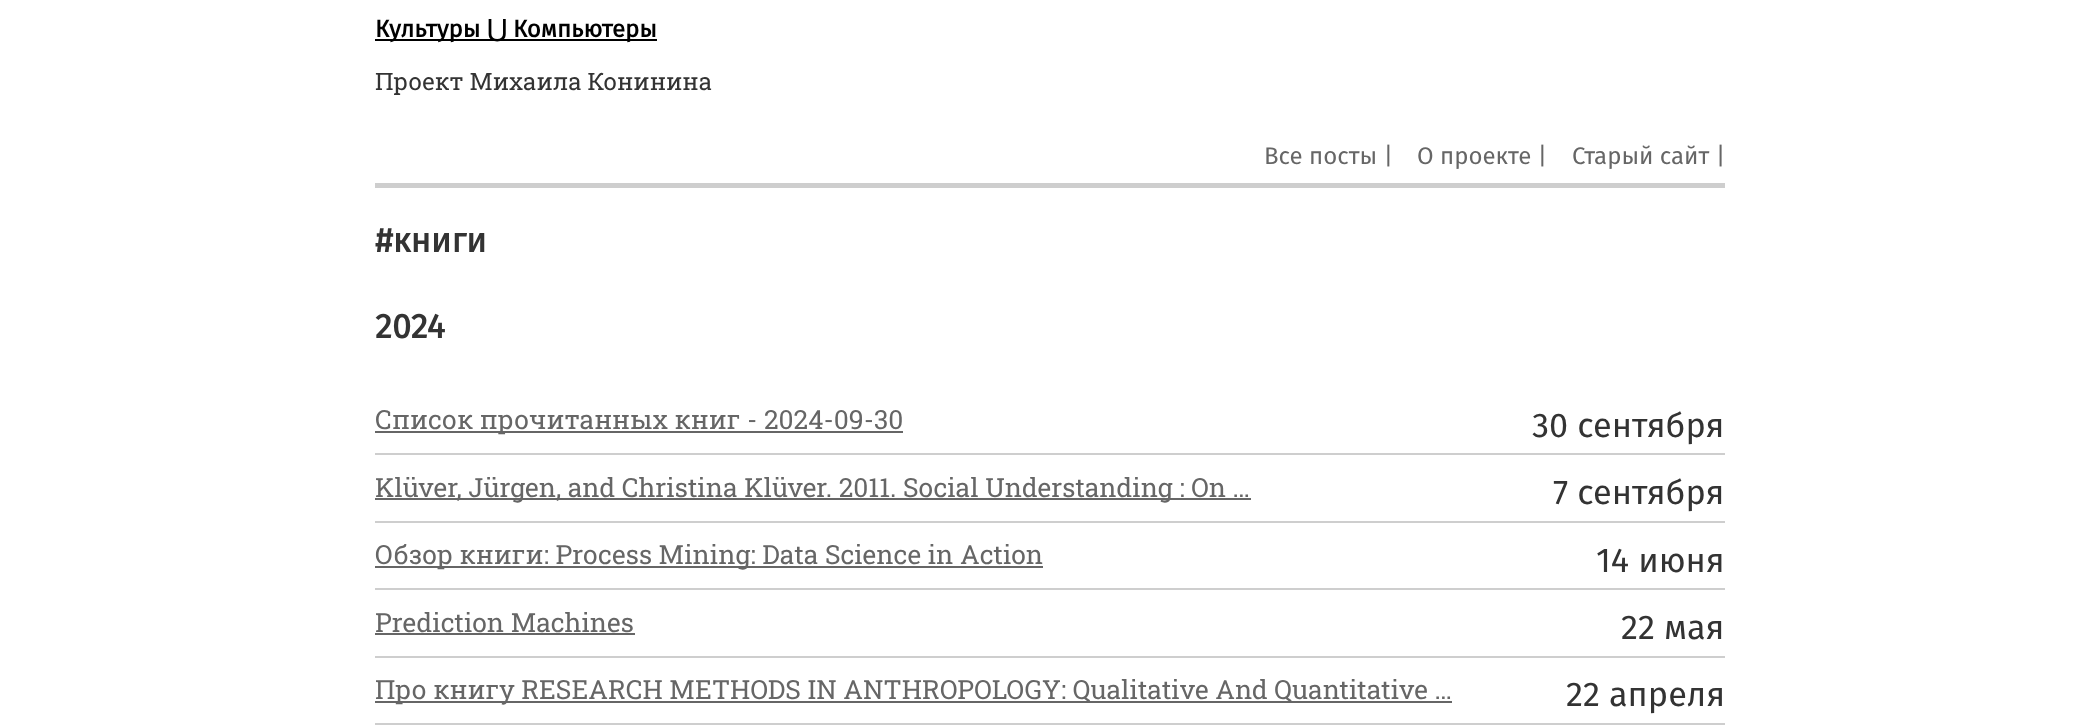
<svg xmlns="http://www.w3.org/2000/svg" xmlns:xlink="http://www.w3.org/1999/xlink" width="2099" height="726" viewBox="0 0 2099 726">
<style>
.cls-1{font:bold 24px Fira Sans;fill:#000000}
.cls-2{font:bold 24px DejaVu Sans;fill:#000000}
.cls-3{font:24px Roboto Slab;fill:#333333}
.cls-4{font:24px Fira Sans;fill:#666666}
.cls-5{font:bold 34.25px Fira Sans;fill:#333333}
.cls-6{font:26.4px Roboto Slab;fill:#666666}
.cls-7{font:34.25px Fira Sans;fill:#333333}
</style>
<rect width="100%" height="100%" fill="#ffffff"/>
<rect fill="#000000" x="375" y="39" width="282" height="2"/>
<rect fill="#cecece" x="375" y="183" width="1350" height="5"/>
<rect fill="#cecece" x="375" y="453" width="1350" height="2"/>
<rect fill="#666666" x="375" y="431" width="528" height="2"/>
<rect fill="#cecece" x="375" y="521" width="1350" height="2"/>
<rect fill="#666666" x="375" y="498" width="876" height="2"/>
<rect fill="#cecece" x="375" y="588" width="1350" height="2"/>
<rect fill="#666666" x="375" y="566" width="668" height="2"/>
<rect fill="#cecece" x="375" y="656" width="1350" height="2"/>
<rect fill="#666666" x="375" y="633" width="260" height="2"/>
<rect fill="#cecece" x="375" y="723" width="1350" height="2"/>
<rect fill="#666666" x="375" y="701" width="1077" height="2"/>
<text class="cls-1" x="375" y="37">Культуры</text>
<text class="cls-2" x="487" y="37">⋃</text>
<text class="cls-1" x="513" y="37">Компьютеры</text>
<text class="cls-3" x="375" y="90">Проект Михаила Конинина</text>
<text class="cls-4" x="1264" y="164">Все посты |</text>
<text class="cls-4" x="1417" y="164">О проекте |</text>
<text class="cls-4" x="1572" y="164">Старый сайт |</text>
<text class="cls-5" x="375" y="252">#книги</text>
<text class="cls-5" x="375" y="338">2024</text>
<text class="cls-6" x="375" y="429">Список прочитанных книг - 2024-09-30</text>
<text class="cls-7" x="1532" y="437">30 сентября</text>
<text class="cls-6" x="375" y="497">Klüver, Jürgen, and Christina Klüver. 2011. Social Understanding : On …</text>
<text class="cls-7" x="1553" y="504">7 сентября</text>
<text class="cls-6" x="375" y="564">Обзор книги: Process Mining: Data Science in Action</text>
<text class="cls-7" x="1596" y="572">14 июня</text>
<text class="cls-6" x="375" y="632">Prediction Machines</text>
<text class="cls-7" x="1621" y="639">22 мая</text>
<text class="cls-6" x="375" y="699">Про книгу RESEARCH METHODS IN ANTHROPOLOGY: Qualitative And Quantitative …</text>
<text class="cls-7" x="1566" y="706">22 апреля</text>
</svg>
